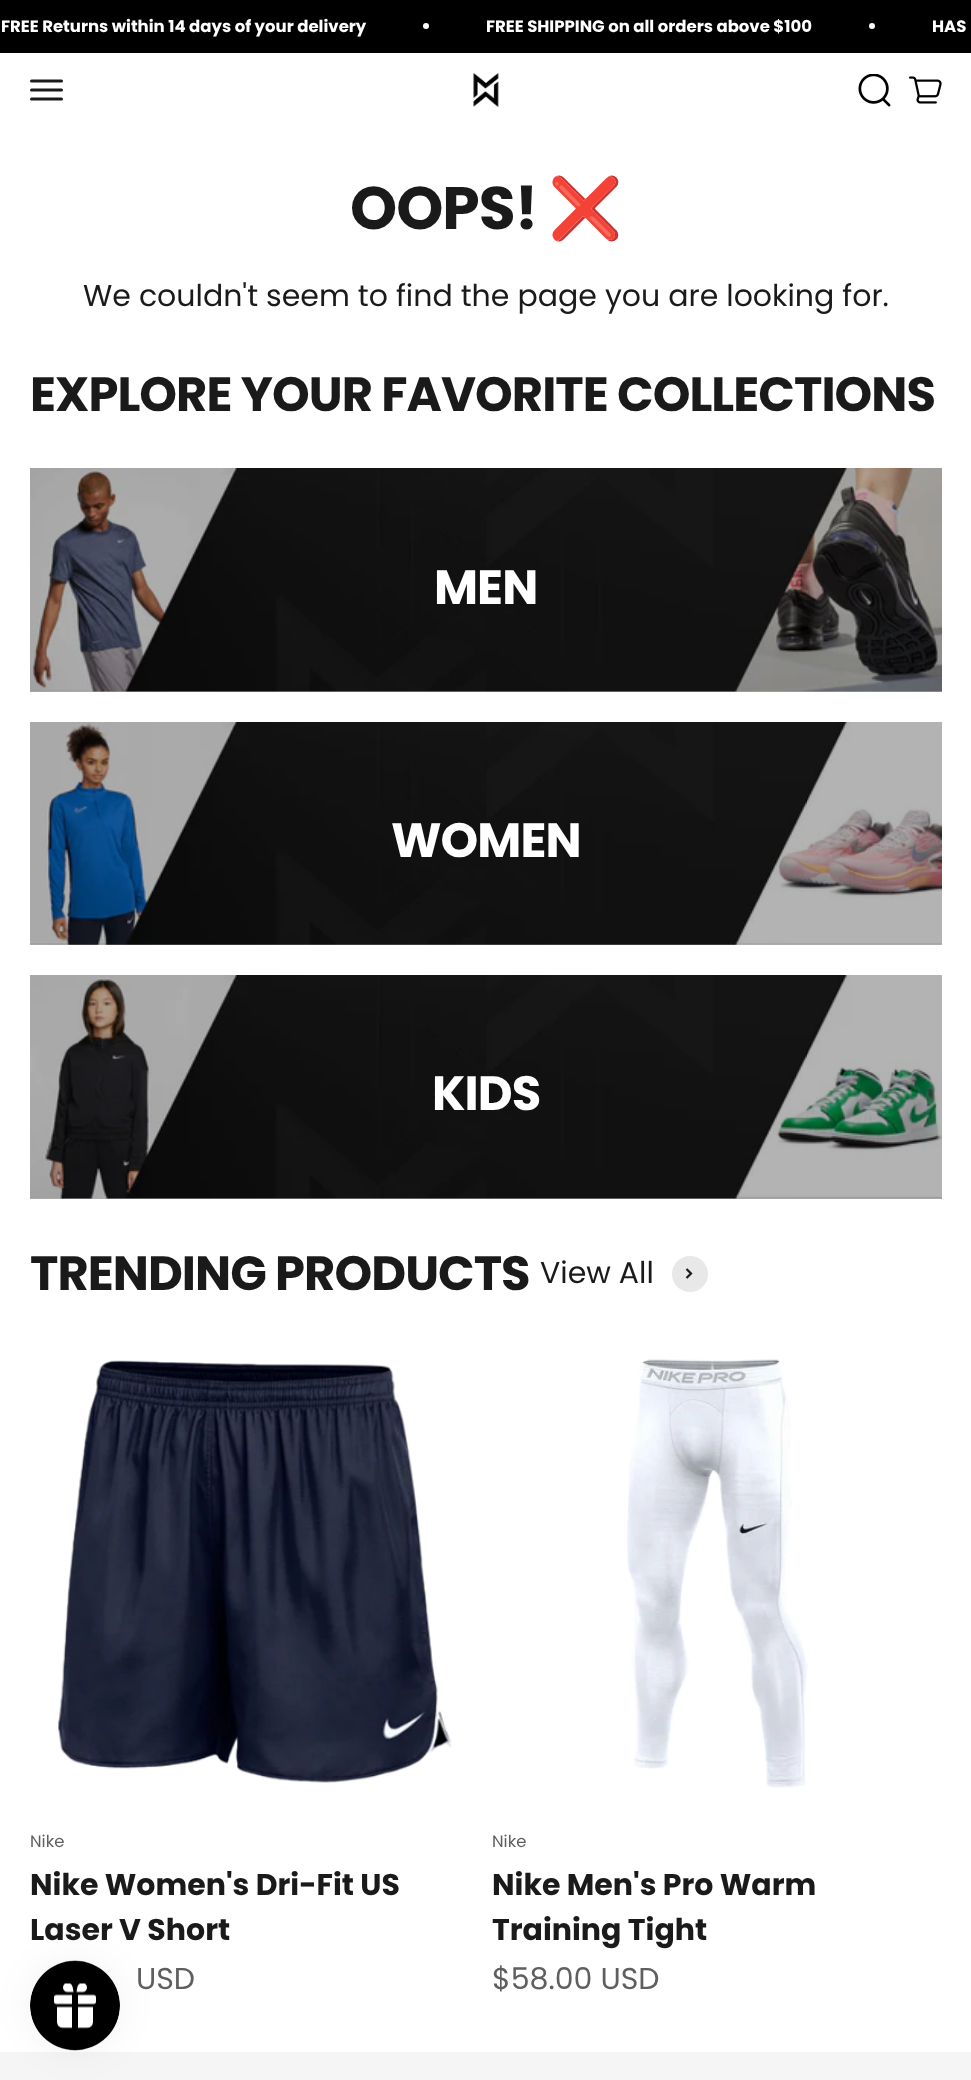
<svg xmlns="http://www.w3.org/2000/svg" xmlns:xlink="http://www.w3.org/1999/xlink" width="971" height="2080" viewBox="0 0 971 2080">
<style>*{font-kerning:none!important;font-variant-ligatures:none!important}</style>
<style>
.cls-1{font:bold 16.5px Poppins;fill:#ffffff}
.cls-2{font:bold 60px Poppins;letter-spacing:-1px;fill:#1a1a1a}
.cls-3{font:bold 60px Noto Color Emoji;letter-spacing:-1px;fill:#1a1a1a}
.cls-4{font:30px Poppins;fill:#1a1a1a}
.cls-5{font:bold 48px Poppins;letter-spacing:-0.95px;fill:#1a1a1a}
.cls-6{font:bold 48px Poppins;letter-spacing:-0.95px;fill:#ffffff}
.cls-7{font:16.5px Poppins;fill:#5f5f5f}
.cls-8{font:bold 30px Poppins;fill:#1a1a1a}
.cls-9{font:30px Poppins;fill:#5f5f5f}
</style>
<rect width="100%" height="100%" fill="#ffffff"/>
<rect fill="#b3b3b3" x="30" y="1198" width="912" height="1"/>
<rect fill="#b3b3b3" x="30" y="691" width="912" height="1"/>
<rect fill="#000000" x="0" y="0" width="971" height="53"/>
<circle fill="#ffffff" cx="426" cy="26" r="3"/>
<circle fill="#ffffff" cx="872" cy="26" r="3"/>
<path fill="none" stroke="#1a1a1a" stroke-width="3" stroke-linecap="round" d="M31.5 81H61.5M31.5 90H61.5M31.5 99H61.5"/>
<image xlink:href="image0.png" x="473" y="73" width="26" height="34"/>
<image xlink:href="image1.png" x="858" y="74" width="33" height="33"/>
<image xlink:href="image2.png" x="909" y="76" width="33" height="28"/>
<image xlink:href="image3.png" x="30" y="468" width="912" height="224"/>
<image xlink:href="image4.png" x="30" y="722" width="912" height="223"/>
<image xlink:href="image5.png" x="30" y="975" width="912" height="224"/>
<circle fill="#e8e8e8" cx="690" cy="1274" r="18"/>
<path fill="none" stroke="#1a1a1a" stroke-width="2.2" d="M686.5 1278L691 1273.5L686.5 1269"/>
<image xlink:href="image6.png" x="58" y="1360" width="394" height="423"/>
<image xlink:href="image7.png" x="627" y="1359" width="181" height="429"/>
<rect fill="#f5f5f5" x="0" y="2052" width="971" height="28"/>
<rect fill="#000000" fill-opacity="0.05" filter="blur(19px)" x="30" y="1961" width="90" height="90" rx="45"/>
<image xlink:href="image8.png" x="30" y="1960" width="90" height="91"/>
<text class="cls-1" x="1" y="32">FREE Returns within 14 days of your delivery</text>
<text class="cls-1" x="486" y="32">FREE SHIPPING on all orders above $100</text>
<text class="cls-1" x="932" y="32">HAS</text>
<text class="cls-2" x="350" y="229">OOPS!</text>
<text class="cls-3" x="548" y="229">❌</text>
<text class="cls-4" x="83" y="306">We couldn't seem to find the page you are looking for.</text>
<text class="cls-5" x="30" y="411">EXPLORE YOUR FAVORITE COLLECTIONS</text>
<text class="cls-6" x="434" y="604">MEN</text>
<text class="cls-6" x="391" y="857">WOMEN</text>
<text class="cls-6" x="432" y="1110">KIDS</text>
<text class="cls-5" x="30" y="1290">TRENDING PRODUCTS</text>
<text class="cls-4" x="540" y="1283">View All</text>
<text class="cls-7" x="30" y="1847">Nike</text>
<text class="cls-8"><tspan x="30" y="1895">Nike Women's Dri-Fit US</tspan><tspan x="30" y="1940">Laser V Short</tspan></text>
<text class="cls-9" x="136" y="1989">USD</text>
<text class="cls-7" x="492" y="1847">Nike</text>
<text class="cls-8"><tspan x="492" y="1895">Nike Men's Pro Warm</tspan><tspan x="492" y="1940">Training Tight</tspan></text>
<text class="cls-9" x="492" y="1989">$58.00 USD</text>
</svg>
